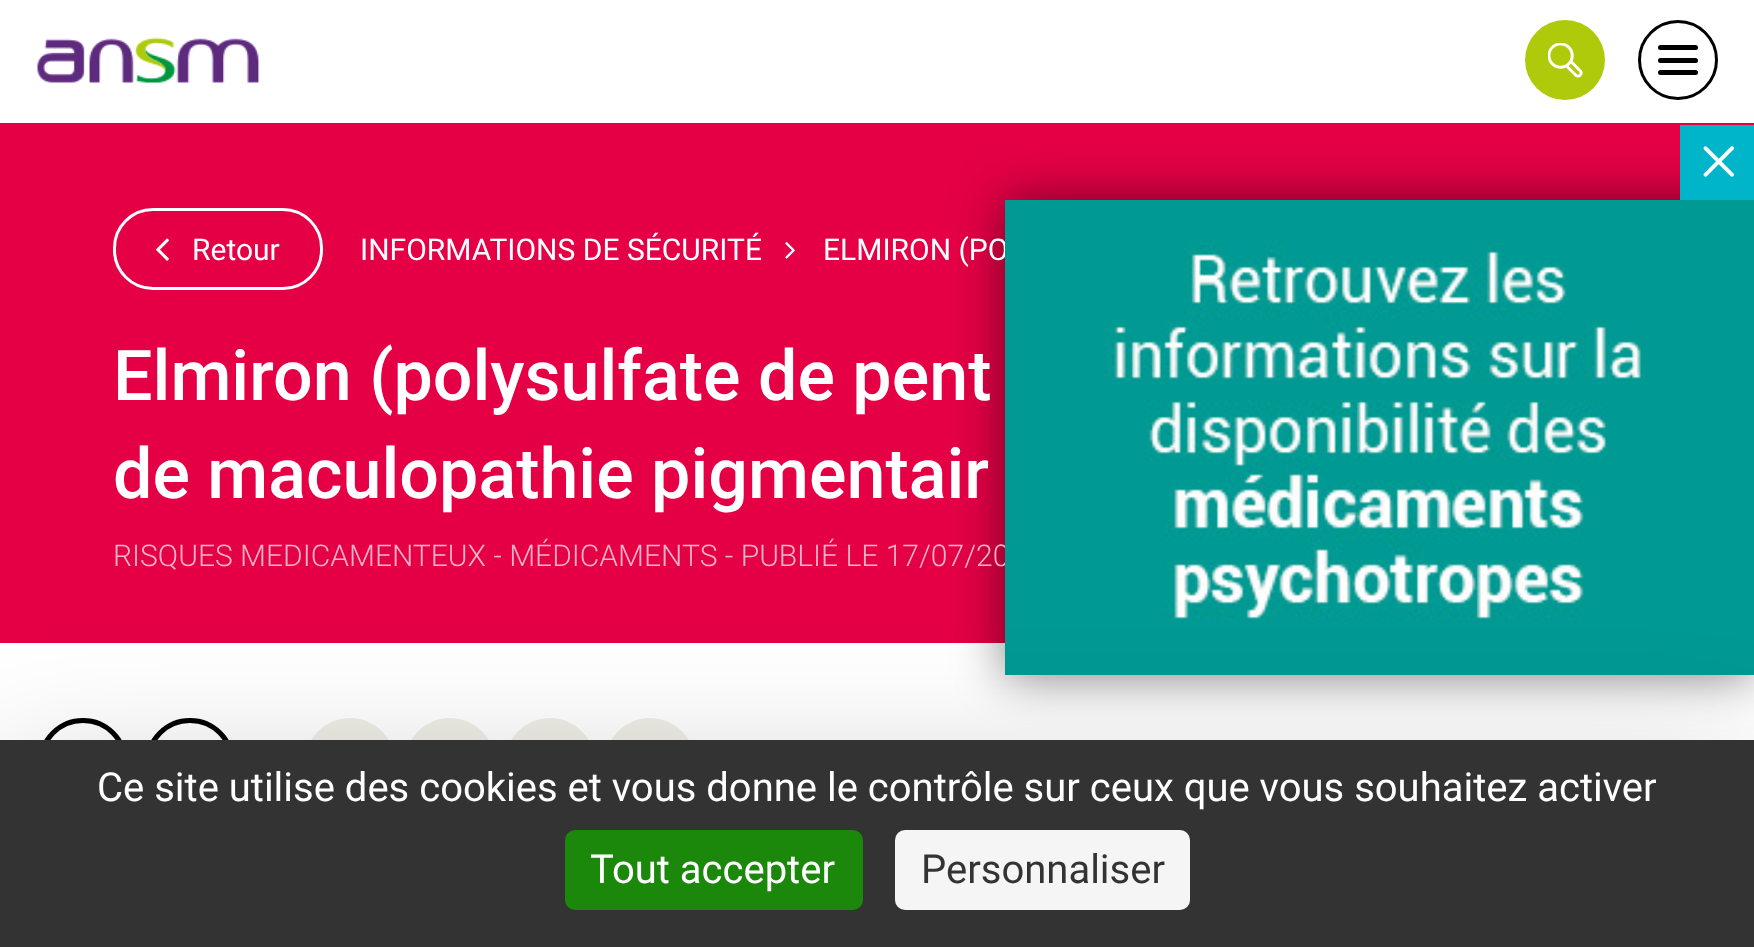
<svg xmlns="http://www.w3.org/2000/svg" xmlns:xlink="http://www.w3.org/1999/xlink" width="1754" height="947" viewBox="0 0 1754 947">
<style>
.cls-1{font:30px Roboto;fill:#ffffff}
.cls-2{font:500 70px Roboto;fill:#ffffff}
.cls-3{font:300 30px Roboto;fill:#f7b3c8}
.cls-4{font:40px Roboto;fill:#ffffff}
.cls-5{font:40px Roboto;fill:#333333}
</style>
<rect width="100%" height="100%" fill="#ffffff"/>
<image xlink:href="image0.png" x="37" y="37" width="223" height="46"/>
<circle fill="#afca0b" cx="1565" cy="60" r="40"/>
<image xlink:href="image1.png" x="1548" y="43" width="35" height="35"/>
<circle fill="none" stroke="#000000" stroke-width="3" cx="1678" cy="60" r="38.5"/>
<rect fill="#000000" x="1658" y="45" width="40" height="5" rx="2.5"/>
<rect fill="#000000" x="1658" y="58" width="40" height="5" rx="2.5"/>
<rect fill="#000000" x="1658" y="70" width="40" height="5" rx="2.5"/>
<rect fill="#e50046" x="0" y="123" width="1754" height="520"/>
<rect fill="none" stroke="#ffffff" stroke-width="3" x="114.5" y="209.5" width="207" height="79" rx="38.5"/>
<image xlink:href="image2.png" x="156" y="238" width="13" height="23"/>
<image xlink:href="image3.png" x="785" y="242" width="10" height="17"/>
<circle fill="none" stroke="#000000" stroke-width="5" cx="83" cy="763" r="42.5"/>
<circle fill="none" stroke="#000000" stroke-width="5" cx="190" cy="763" r="42.5"/>
<circle fill="#efefe7" cx="350" cy="763" r="45"/>
<circle fill="#efefe7" cx="450" cy="763" r="45"/>
<circle fill="#efefe7" cx="550" cy="763" r="45"/>
<circle fill="#efefe7" cx="650" cy="763" r="45"/>
<rect fill="#000000" fill-opacity="0.5" filter="blur(25px)" x="1005" y="200" width="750" height="475"/>
<rect fill="#00b4ca" x="1680" y="125" width="74" height="75"/>
<image xlink:href="image5.png" x="1703" y="146" width="31" height="31"/>
<text class="cls-1" x="192" y="260">Retour</text>
<text class="cls-1" x="360" y="260">INFORMATIONS DE SÉCURITÉ</text>
<text class="cls-1" x="823" y="260">ELMIRON (PO</text>
<text class="cls-2"><tspan x="113" y="400">Elmiron (polysulfate de pent</tspan><tspan x="113" y="498">de maculopathie pigmentair</tspan></text>
<text class="cls-3" x="113" y="566">RISQUES MEDICAMENTEUX - MÉDICAMENTS - PUBLIÉ LE 17/07/20</text>
<image xlink:href="image4.png" x="1005" y="200" width="749" height="475"/>
<rect fill="#000000" fill-opacity="0.25" filter="blur(75px)" x="0" y="790" width="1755" height="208"/>
<rect fill="#333333" x="0" y="740" width="1754" height="207"/>
<text class="cls-4" x="97" y="801">Ce site utilise des cookies et vous donne le contrôle sur ceux que vous souhaitez activer</text>
<rect fill="#1b870b" x="565" y="830" width="298" height="80" rx="10"/>
<text class="cls-4" x="590" y="883">Tout accepter</text>
<rect fill="#f5f5f5" x="895" y="830" width="295" height="80" rx="10"/>
<text class="cls-5" x="921" y="883">Personnaliser</text>
</svg>
